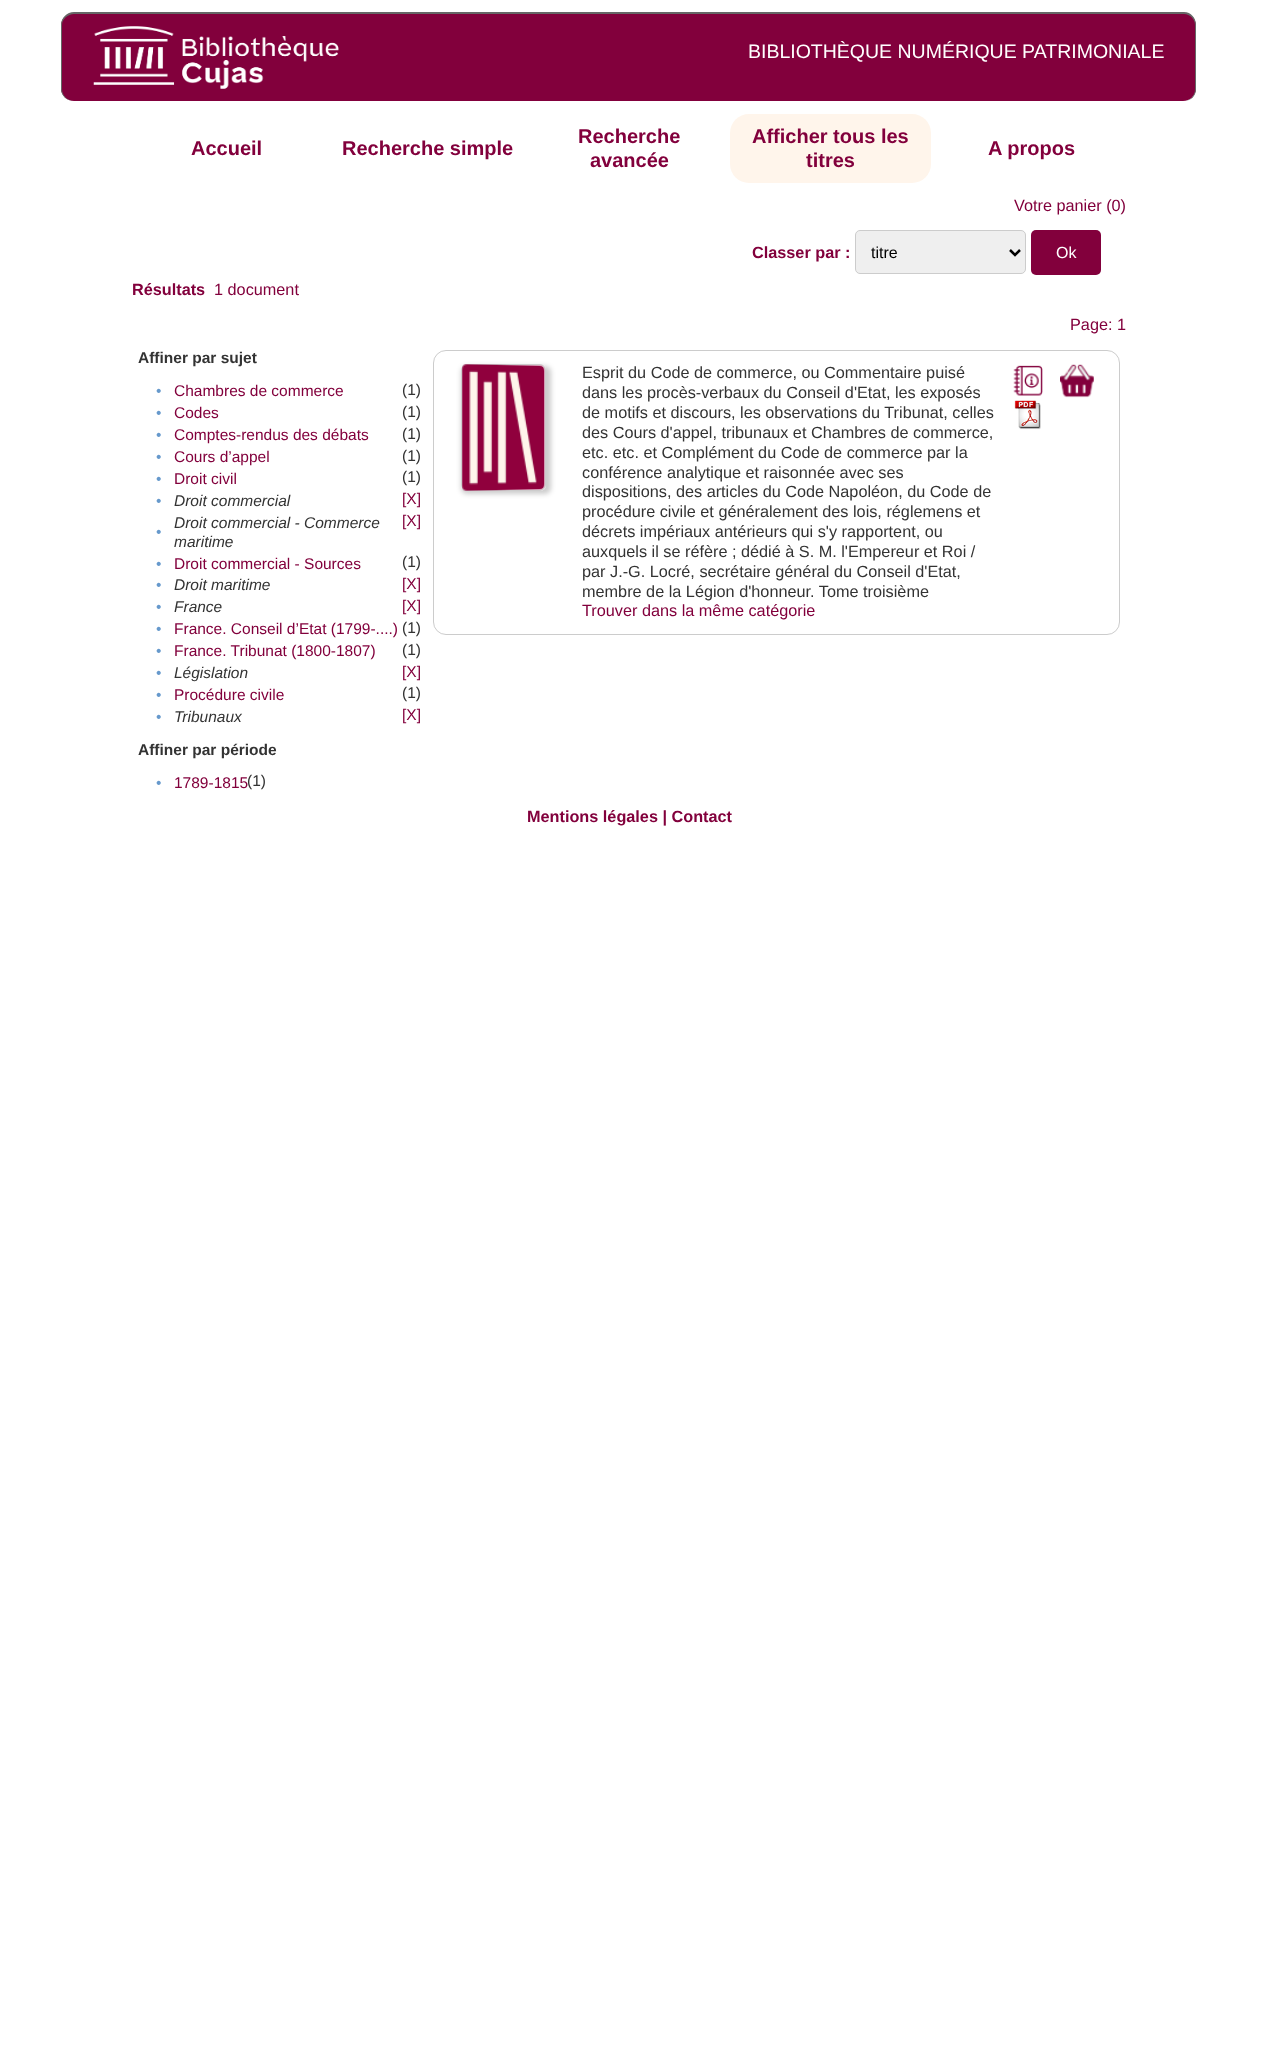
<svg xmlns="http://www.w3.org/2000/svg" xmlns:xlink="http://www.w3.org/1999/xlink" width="1271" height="2058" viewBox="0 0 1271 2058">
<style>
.cls-1{font:19.5px Liberation Sans;fill:#ffffff}
.cls-2{font:bold 20px Liberation Sans;fill:#82003c}
.cls-3{font:16.25px Liberation Sans;fill:#82003c}
.cls-4{font:bold 16.25px Liberation Sans;fill:#82003c}
.cls-5{font:16px Liberation Sans;fill:#000000}
.cls-6{font:16px Liberation Sans;fill:#ffffff}
.cls-7{font:bold 15.5px Liberation Sans;fill:#333333}
.cls-8{font:15.5px Liberation Sans;fill:#6699cc}
.cls-9{font:15.5px Liberation Sans;fill:#82003c}
.cls-10{font:15.5px Liberation Sans;fill:#333333}
.cls-11{font:italic 15.5px Liberation Sans;fill:#333333}
.cls-12{font:16.25px Liberation Sans;fill:#333333}
</style>
<defs>
<clipPath id="clip1"><path d="M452 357H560V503H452ZM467 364H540C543.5 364 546 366.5 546 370V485C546 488.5 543.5 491 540 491H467C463.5 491 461 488.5 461 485V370C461 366.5 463.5 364 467 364Z" clip-rule="evenodd"/></clipPath>
</defs>
<rect width="100%" height="100%" fill="#ffffff"/>
<rect fill="#82003c" x="61" y="13" width="1135" height="88" rx="13"/>
<path fill="#666666" fill-rule="evenodd" d="M74 12H1184C1191 12 1196 18 1196 25V89C1196 96 1191 101 1184 101H74C67 101 61 96 61 89V25C61 18 67 12 74 12ZM74 14H1184C1190 14 1195 19 1195 25V89C1195 96 1190 101 1184 101H74C68 101 62 96 62 89V25C62 19 68 14 74 14Z"/>
<image xlink:href="image0.png" x="93" y="26" width="246" height="63"/>
<rect fill="#fff5eb" x="730" y="114" width="201" height="69" rx="19"/>
<rect fill="#efefef" stroke="#cccccc" x="855.5" y="230.5" width="170" height="43" rx="4.5"/>
<path fill="none" stroke="#000000" stroke-width="2.5" d="M1010 250L1015 255L1020 250"/>
<rect fill="#82003c" x="1031" y="230" width="70" height="45" rx="5"/>
<rect fill="none" stroke="#cccccc" x="433.5" y="350.5" width="686" height="284" rx="12.5"/>
<g clip-path="url(#clip1)">
<rect fill="#000000" fill-opacity="0.2" filter="blur(2.5px)" x="461" y="366" width="90" height="128" rx="6"/>
</g>
<rect fill="none" stroke="#cccccc" x="461.5" y="364.5" width="84" height="126" rx="5.5"/>
<image xlink:href="image1.png" x="462" y="364" width="83" height="127"/>
<image xlink:href="image2.png" x="1013" y="365" width="30" height="31"/>
<image xlink:href="image3.png" x="1014" y="400" width="27" height="30"/>
<image xlink:href="image4.png" x="1060" y="364" width="34" height="34"/>
<text class="cls-1" x="748" y="58">BIBLIOTHÈQUE NUMÉRIQUE PATRIMONIALE</text>
<text class="cls-2" x="191" y="155">Accueil</text>
<text class="cls-2" x="342" y="155">Recherche simple</text>
<text class="cls-2" x="578" y="143">Recherche</text>
<text class="cls-2" x="590" y="167">avancée</text>
<text class="cls-2" x="752" y="143">Afficher tous les</text>
<text class="cls-2" x="806" y="167">titres</text>
<text class="cls-2" x="988" y="155">A propos</text>
<text class="cls-3" x="1014" y="211">Votre panier (0)</text>
<text class="cls-4" x="752" y="258">Classer par :</text>
<text class="cls-5" x="871" y="258">titre</text>
<text class="cls-6" x="1056" y="258">Ok</text>
<text class="cls-4" x="132" y="295">Résultats</text>
<text class="cls-3" x="214" y="295">1 document</text>
<text class="cls-3" x="1070" y="330">Page: 1</text>
<text class="cls-7" x="138" y="363">Affiner par sujet</text>
<text class="cls-8" x="156" y="396">•</text>
<text class="cls-9" x="174" y="396">Chambres de commerce</text>
<text class="cls-10" x="402" y="395">(1)</text>
<text class="cls-8" x="156" y="418">•</text>
<text class="cls-9" x="174" y="418">Codes</text>
<text class="cls-10" x="402" y="417">(1)</text>
<text class="cls-8" x="156" y="440">•</text>
<text class="cls-9" x="174" y="440">Comptes-rendus des débats</text>
<text class="cls-10" x="402" y="439">(1)</text>
<text class="cls-8" x="156" y="462">•</text>
<text class="cls-9" x="174" y="462">Cours d’appel</text>
<text class="cls-10" x="402" y="461">(1)</text>
<text class="cls-8" x="156" y="484">•</text>
<text class="cls-9" x="174" y="484">Droit civil</text>
<text class="cls-10" x="402" y="482">(1)</text>
<text class="cls-8" x="156" y="506">•</text>
<text class="cls-11" x="174" y="506">Droit commercial</text>
<text class="cls-9" x="402" y="504">[X]</text>
<text class="cls-8" x="156" y="537">•</text>
<text class="cls-11"><tspan x="174" y="528">Droit commercial - Commerce</tspan><tspan x="174" y="547">maritime</tspan></text>
<text class="cls-9" x="402" y="526">[X]</text>
<text class="cls-8" x="156" y="569">•</text>
<text class="cls-9" x="174" y="569">Droit commercial - Sources</text>
<text class="cls-10" x="402" y="567">(1)</text>
<text class="cls-8" x="156" y="590">•</text>
<text class="cls-11" x="174" y="590">Droit maritime</text>
<text class="cls-9" x="402" y="589">[X]</text>
<text class="cls-8" x="156" y="612">•</text>
<text class="cls-11" x="174" y="612">France</text>
<text class="cls-9" x="402" y="611">[X]</text>
<text class="cls-8" x="156" y="634">•</text>
<text class="cls-9" x="174" y="634">France. Conseil d’Etat (1799-....)</text>
<text class="cls-10" x="402" y="633">(1)</text>
<text class="cls-8" x="156" y="656">•</text>
<text class="cls-9" x="174" y="656">France. Tribunat (1800-1807)</text>
<text class="cls-10" x="402" y="655">(1)</text>
<text class="cls-8" x="156" y="678">•</text>
<text class="cls-11" x="174" y="678">Législation</text>
<text class="cls-9" x="402" y="677">[X]</text>
<text class="cls-8" x="156" y="700">•</text>
<text class="cls-9" x="174" y="700">Procédure civile</text>
<text class="cls-10" x="402" y="698">(1)</text>
<text class="cls-8" x="156" y="722">•</text>
<text class="cls-11" x="174" y="722">Tribunaux</text>
<text class="cls-9" x="402" y="720">[X]</text>
<text class="cls-7" x="138" y="755">Affiner par période</text>
<text class="cls-8" x="156" y="788">•</text>
<text class="cls-9" x="174" y="788">1789-1815</text>
<text class="cls-10" x="247" y="786">(1)</text>
<text class="cls-12"><tspan x="582" y="378">Esprit du Code de commerce, ou Commentaire puisé</tspan><tspan x="582" y="398">dans les procès-verbaux du Conseil d'Etat, les exposés</tspan><tspan x="582" y="418">de motifs et discours, les observations du Tribunat, celles</tspan><tspan x="582" y="438">des Cours d'appel, tribunaux et Chambres de commerce,</tspan><tspan x="582" y="458">etc. etc. et Complément du Code de commerce par la</tspan><tspan x="582" y="478">conférence analytique et raisonnée avec ses</tspan><tspan x="582" y="497">dispositions, des articles du Code Napoléon, du Code de</tspan><tspan x="582" y="517">procédure civile et généralement des lois, réglemens et</tspan><tspan x="582" y="537">décrets impériaux antérieurs qui s'y rapportent, ou</tspan><tspan x="582" y="557">auxquels il se réfère ; dédié à S. M. l'Empereur et Roi /</tspan><tspan x="582" y="577">par J.-G. Locré, secrétaire général du Conseil d'Etat,</tspan><tspan x="582" y="597">membre de la Légion d'honneur. Tome troisième</tspan></text>
<text class="cls-3" x="582" y="616">Trouver dans la même catégorie</text>
<text class="cls-4" x="527" y="822">Mentions légales | Contact</text>
</svg>
